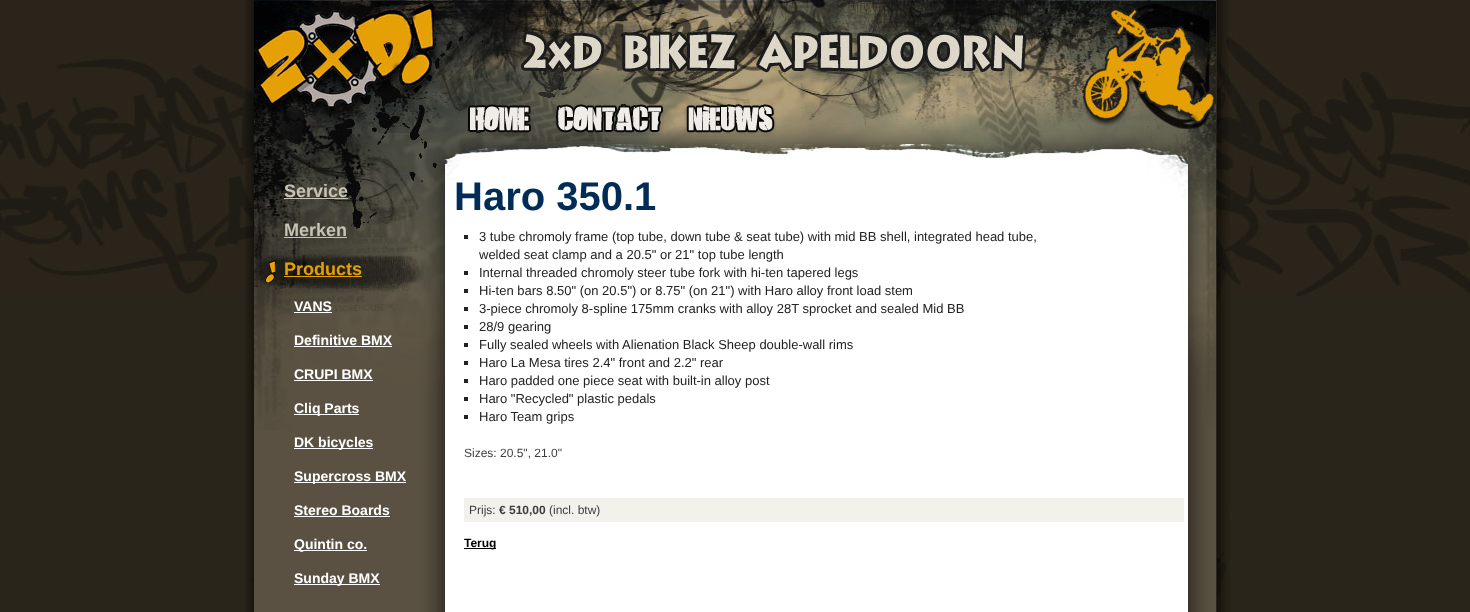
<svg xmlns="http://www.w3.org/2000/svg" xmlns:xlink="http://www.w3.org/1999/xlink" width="1470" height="612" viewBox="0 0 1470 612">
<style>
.cls-1{font:bold 18px Liberation Sans;fill:#c7c2b4}
.cls-2{font:bold 18px Liberation Sans;fill:#e5a005}
.cls-3{font:bold 14px Liberation Sans;fill:#ffffff}
.cls-4{font:bold 40px Liberation Sans;fill:#012c56}
.cls-5{font:13px Liberation Sans;fill:#222222}
.cls-6{font:12px Liberation Sans;fill:#3d3d3d}
.cls-7{font:bold 12px Liberation Sans;fill:#3d3d3d}
.cls-8{font:bold 12px Liberation Sans;fill:#000000}
</style>
<rect width="100%" height="100%" fill="#2a251a"/>
<image xlink:href="image0.png" x="0" y="0" width="1470" height="296"/>
<image xlink:href="image1.png" x="245" y="0" width="984" height="174"/>
<image xlink:href="image2.png" x="254" y="0" width="962" height="174"/>
<image xlink:href="image3.png" x="467" y="104" width="64" height="32"/>
<image xlink:href="image4.png" x="555" y="103" width="109" height="33"/>
<image xlink:href="image5.png" x="684" y="104" width="92" height="33"/>
<image xlink:href="image6.png" x="245" y="174" width="985" height="438"/>
<image xlink:href="image7.png" x="254" y="430" width="962" height="182"/>
<image xlink:href="image8.png" x="254" y="174" width="962" height="256"/>
<rect fill="#c7c2b4" x="284" y="198" width="64" height="1"/>
<rect fill="#c7c2b4" x="284" y="237" width="63" height="1"/>
<image xlink:href="image9.png" x="256" y="254" width="168" height="37"/>
<rect fill="#e5a005" x="284" y="276" width="78" height="1"/>
<rect fill="#ffffff" x="294" y="312" width="38" height="1"/>
<rect fill="#ffffff" x="294" y="346" width="98" height="1"/>
<rect fill="#ffffff" x="294" y="380" width="79" height="1"/>
<rect fill="#ffffff" x="294" y="414" width="65" height="1"/>
<rect fill="#ffffff" x="294" y="448" width="79" height="1"/>
<rect fill="#ffffff" x="294" y="482" width="112" height="1"/>
<rect fill="#ffffff" x="294" y="516" width="96" height="1"/>
<rect fill="#ffffff" x="294" y="550" width="73" height="1"/>
<rect fill="#ffffff" x="294" y="584" width="86" height="1"/>
<rect fill="#222222" x="464" y="235" width="4" height="4"/>
<rect fill="#222222" x="464" y="271" width="4" height="4"/>
<rect fill="#222222" x="464" y="289" width="4" height="4"/>
<rect fill="#222222" x="464" y="307" width="4" height="4"/>
<rect fill="#222222" x="464" y="325" width="4" height="4"/>
<rect fill="#222222" x="464" y="343" width="4" height="4"/>
<rect fill="#222222" x="464" y="361" width="4" height="4"/>
<rect fill="#222222" x="464" y="379" width="4" height="4"/>
<rect fill="#222222" x="464" y="397" width="4" height="4"/>
<rect fill="#222222" x="464" y="415" width="4" height="4"/>
<rect fill="#f3f1eb" x="464" y="498" width="720" height="24"/>
<rect fill="#000000" x="464" y="548" width="32" height="1"/>
<text class="cls-1" x="284" y="197">Service</text>
<text class="cls-1" x="284" y="236">Merken</text>
<text class="cls-2" x="284" y="275">Products</text>
<text class="cls-3" x="294" y="311">VANS</text>
<text class="cls-3" x="294" y="345">Definitive BMX</text>
<text class="cls-3" x="294" y="379">CRUPI BMX</text>
<text class="cls-3" x="294" y="413">Cliq Parts</text>
<text class="cls-3" x="294" y="447">DK bicycles</text>
<text class="cls-3" x="294" y="481">Supercross BMX</text>
<text class="cls-3" x="294" y="515">Stereo Boards</text>
<text class="cls-3" x="294" y="549">Quintin co.</text>
<text class="cls-3" x="294" y="583">Sunday BMX</text>
<text class="cls-4" x="454" y="210">Haro 350.1</text>
<text class="cls-5"><tspan x="479" y="241">3 tube chromoly frame (top tube, down tube &amp; seat tube) with mid BB shell, integrated head tube,</tspan><tspan x="479" y="259">welded seat clamp and a 20.5" or 21" top tube length</tspan><tspan x="479" y="277">Internal threaded chromoly steer tube fork with hi-ten tapered legs</tspan><tspan x="479" y="295">Hi-ten bars 8.50" (on 20.5") or 8.75" (on 21") with Haro alloy front load stem</tspan><tspan x="479" y="313">3-piece chromoly 8-spline 175mm cranks with alloy 28T sprocket and sealed Mid BB</tspan><tspan x="479" y="331">28/9 gearing</tspan><tspan x="479" y="349">Fully sealed wheels with Alienation Black Sheep double-wall rims</tspan><tspan x="479" y="367">Haro La Mesa tires 2.4" front and 2.2" rear</tspan><tspan x="479" y="385">Haro padded one piece seat with built-in alloy post</tspan><tspan x="479" y="403">Haro "Recycled" plastic pedals</tspan><tspan x="479" y="421">Haro Team grips</tspan></text>
<text class="cls-6" x="464" y="457">Sizes: 20.5", 21.0"</text>
<text class="cls-6" x="469" y="514">Prijs:</text>
<text class="cls-7" x="499" y="514">€ 510,00</text>
<text class="cls-6" x="549" y="514">(incl. btw)</text>
<text class="cls-8" x="464" y="547">Terug</text>
</svg>
